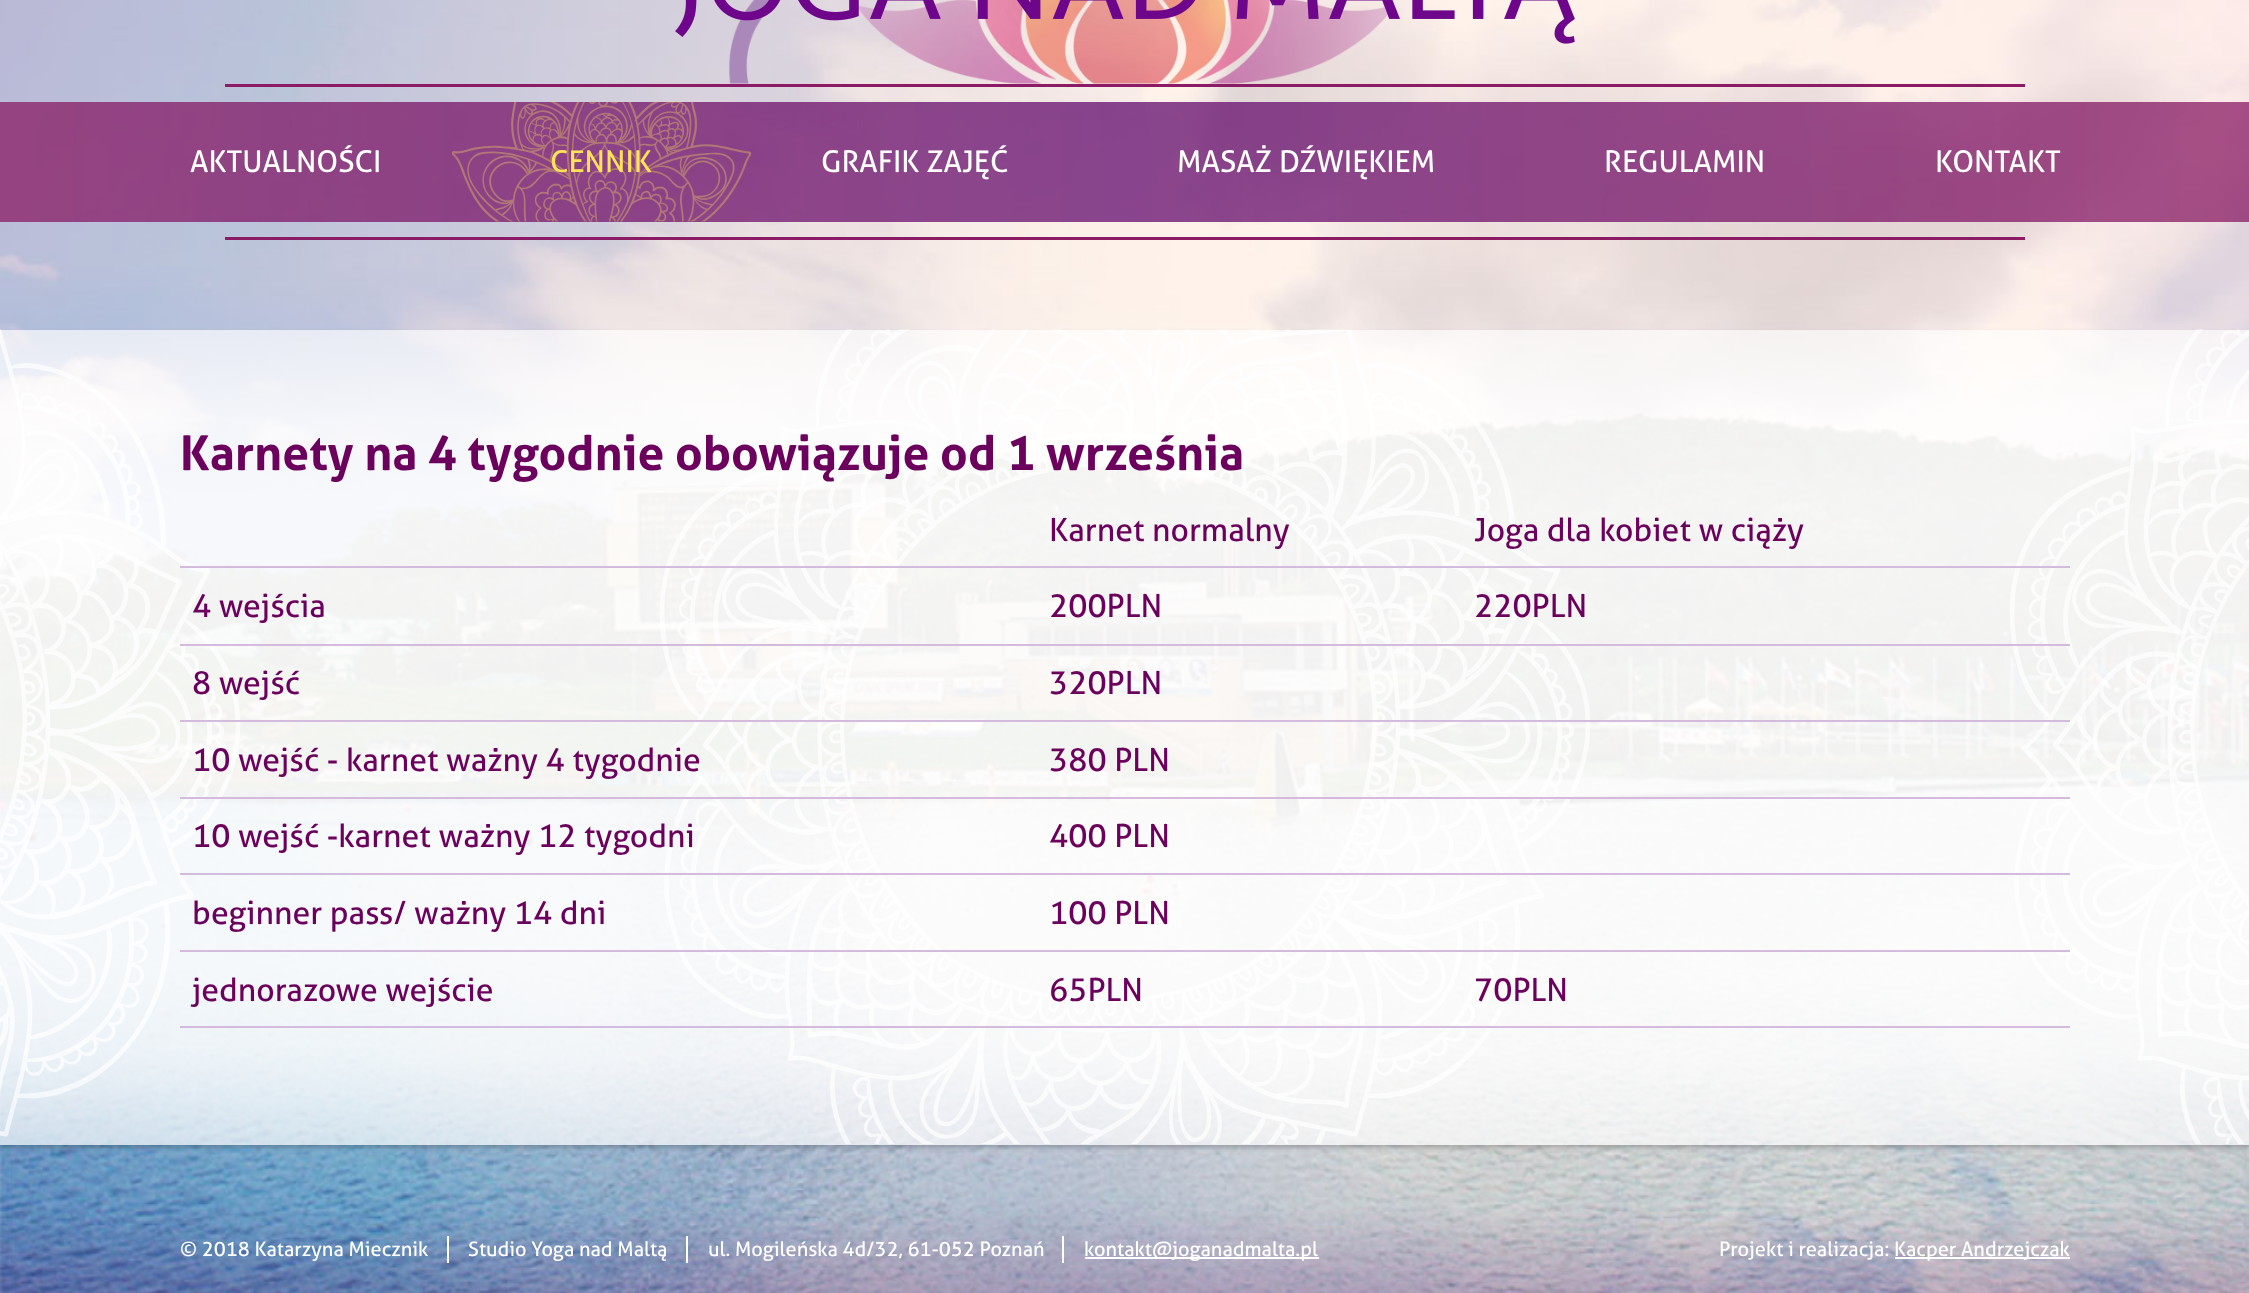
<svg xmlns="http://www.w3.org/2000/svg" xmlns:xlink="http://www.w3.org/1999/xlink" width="2249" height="1293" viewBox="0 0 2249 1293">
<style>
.cls-1{font:30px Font;fill:#ffffff}
.cls-2{font:30px Font;fill:#ffe459}
.cls-3{font:bold 48px Font;fill:#6b005d}
.cls-4{font:32px Font;fill:#6b005d}
.cls-5{font:20px Font;fill:#ffffff}
</style>
<defs>
<clipPath id="clip1"><path d="M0 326H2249V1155H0ZM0 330H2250V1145H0Z" clip-rule="evenodd"/></clipPath>
<linearGradient id="g1" gradientUnits="userSpaceOnUse" x1="1125" y1="330" x2="1125" y2="1145"><stop offset="0" stop-color="#ffffff" stop-opacity="0.67"/><stop offset="0.11" stop-color="#ffffff" stop-opacity="0.85"/><stop offset="0.22" stop-color="#ffffff" stop-opacity="0.9"/><stop offset="0.78" stop-color="#ffffff" stop-opacity="0.9"/><stop offset="0.89" stop-color="#ffffff" stop-opacity="0.85"/><stop offset="1" stop-color="#ffffff" stop-opacity="0.67"/></linearGradient>
</defs>
<rect width="100%" height="100%" fill="#ffffff"/>
<image xlink:href="image0.png" x="0" y="0" width="2249" height="1293"/>
<image xlink:href="image2.png" x="729" y="0" width="666" height="84"/>
<image xlink:href="image1.png" x="675" y="0" width="900" height="44"/>
<rect fill="#8a1b64" x="225" y="84" width="1800" height="3"/>
<image xlink:href="image3.png" x="452" y="101" width="300" height="121"/>
<rect fill="#8a1b64" x="225" y="237" width="1800" height="3"/>
<g clip-path="url(#clip1)">
<rect fill="#000000" fill-opacity="0.2" filter="blur(2px)" x="0" y="333" width="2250" height="815"/>
</g>
<rect fill="url(#g1)" x="0" y="330" width="2249" height="815"/>
<image xlink:href="image4.png" x="0" y="329" width="2249" height="815"/>
<rect fill="#d4bbde" x="180" y="566" width="1890" height="2"/>
<rect fill="#d4bbde" x="180" y="644" width="1890" height="2"/>
<rect fill="#d4bbde" x="180" y="720" width="1890" height="2"/>
<rect fill="#d4bbde" x="180" y="797" width="1890" height="2"/>
<rect fill="#d4bbde" x="180" y="873" width="1890" height="2"/>
<rect fill="#d4bbde" x="180" y="950" width="1890" height="2"/>
<rect fill="#d4bbde" x="180" y="1026" width="1890" height="2"/>
<rect fill="#ffffff" x="447" y="1236" width="2" height="27"/>
<rect fill="#ffffff" x="686" y="1236" width="2" height="27"/>
<rect fill="#ffffff" x="1062" y="1236" width="2" height="27"/>
<rect fill="#ffffff" x="1085" y="1257" width="234" height="2"/>
<rect fill="#ffffff" x="1895" y="1257" width="175" height="2"/>
<text class="cls-1" x="190" y="172">AKTUALNOŚCI</text>
<text class="cls-2" x="550" y="172">CENNIK</text>
<text class="cls-1" x="821" y="172">GRAFIK ZAJĘĆ</text>
<text class="cls-1" x="1177" y="172">MASAŻ DŹWIĘKIEM</text>
<text class="cls-1" x="1604" y="172">REGULAMIN</text>
<text class="cls-1" x="1935" y="172">KONTAKT</text>
<text class="cls-3" x="180" y="470">Karnety na 4 tygodnie obowiązuje od 1 września</text>
<text class="cls-4" x="1049" y="541">Karnet normalny</text>
<text class="cls-4" x="1474" y="541">Joga dla kobiet w ciąży</text>
<text class="cls-4" x="192" y="617">4 wejścia</text>
<text class="cls-4" x="1049" y="617">200PLN</text>
<text class="cls-4" x="1474" y="617">220PLN</text>
<text class="cls-4" x="192" y="694">8 wejść</text>
<text class="cls-4" x="1049" y="694">320PLN</text>
<text class="cls-4" x="192" y="771">10 wejść - karnet ważny 4 tygodnie</text>
<text class="cls-4" x="1049" y="771">380 PLN</text>
<text class="cls-4" x="192" y="847">10 wejść -karnet ważny 12 tygodni</text>
<text class="cls-4" x="1049" y="847">400 PLN</text>
<text class="cls-4" x="192" y="924">beginner pass/ ważny 14 dni</text>
<text class="cls-4" x="1049" y="924">100 PLN</text>
<text class="cls-4" x="192" y="1001">jednorazowe wejście</text>
<text class="cls-4" x="1049" y="1001">65PLN</text>
<text class="cls-4" x="1474" y="1001">70PLN</text>
<text class="cls-5" x="180" y="1256">© 2018 Katarzyna Miecznik</text>
<text class="cls-5" x="468" y="1256">Studio Yoga nad Maltą</text>
<text class="cls-5" x="708" y="1256">ul. Mogileńska 4d/32, 61-052 Poznań</text>
<text class="cls-5" x="1084" y="1256">kontakt@joganadmalta.pl</text>
<text class="cls-5" x="1719" y="1256">Projekt i realizacja:</text>
<text class="cls-5" x="1894" y="1256">Kacper Andrzejczak</text>
</svg>
